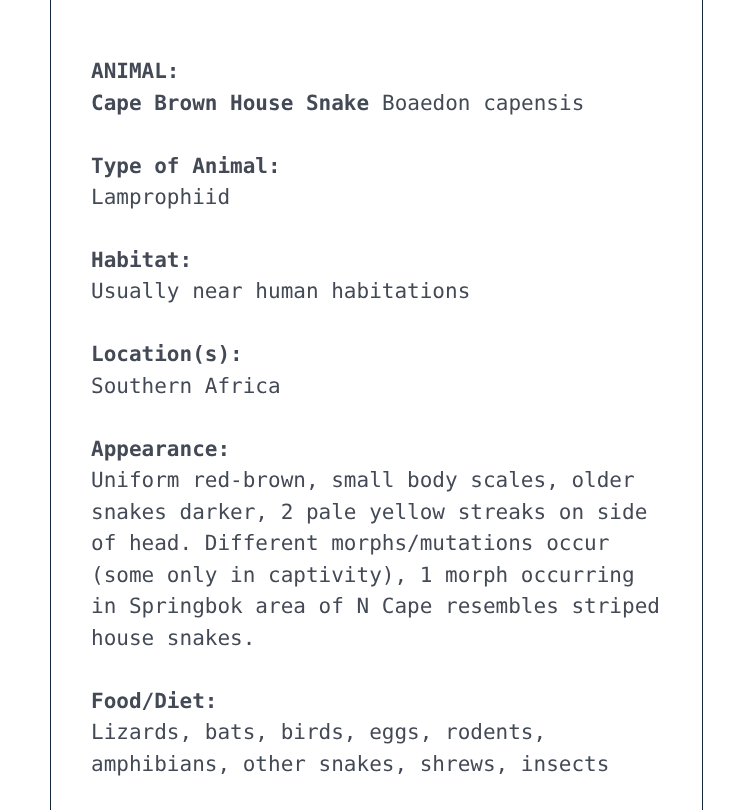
<svg xmlns="http://www.w3.org/2000/svg" xmlns:xlink="http://www.w3.org/1999/xlink" width="752" height="810" viewBox="0 0 752 810">
<style>
.cls-1{font:bold 21px DejaVu Sans Mono;fill:#434a56}
.cls-2{font:21px DejaVu Sans Mono;fill:#434a56}
</style>
<rect width="100%" height="100%" fill="#ffffff"/>
<rect fill="none" stroke="#13263a" x="50.5" y="-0.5" width="652" height="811"/>
<text class="cls-1"><tspan x="91" y="78">ANIMAL:</tspan><tspan x="91" y="110">Cape Brown House Snake</tspan></text>
<text class="cls-2" x="382" y="110">Boaedon capensis</text>
<text class="cls-1" x="91" y="173">Type of Animal:</text>
<text class="cls-2" x="91" y="204">Lamprophiid</text>
<text class="cls-1" x="91" y="267">Habitat:</text>
<text class="cls-2" x="91" y="298">Usually near human habitations</text>
<text class="cls-1" x="91" y="361">Location(s):</text>
<text class="cls-2" x="91" y="393">Southern Africa</text>
<text class="cls-1" x="91" y="456">Appearance:</text>
<text class="cls-2"><tspan x="91" y="487">Uniform red-brown, small body scales, older</tspan><tspan x="91" y="519">snakes darker, 2 pale yellow streaks on side</tspan><tspan x="91" y="550">of head. Different morphs/mutations occur</tspan><tspan x="91" y="582">(some only in captivity), 1 morph occurring</tspan><tspan x="91" y="613">in Springbok area of N Cape resembles striped</tspan><tspan x="91" y="645">house snakes.</tspan></text>
<text class="cls-1" x="91" y="708">Food/Diet:</text>
<text class="cls-2"><tspan x="91" y="739">Lizards, bats, birds, eggs, rodents,</tspan><tspan x="91" y="771">amphibians, other snakes, shrews, insects</tspan></text>
</svg>
